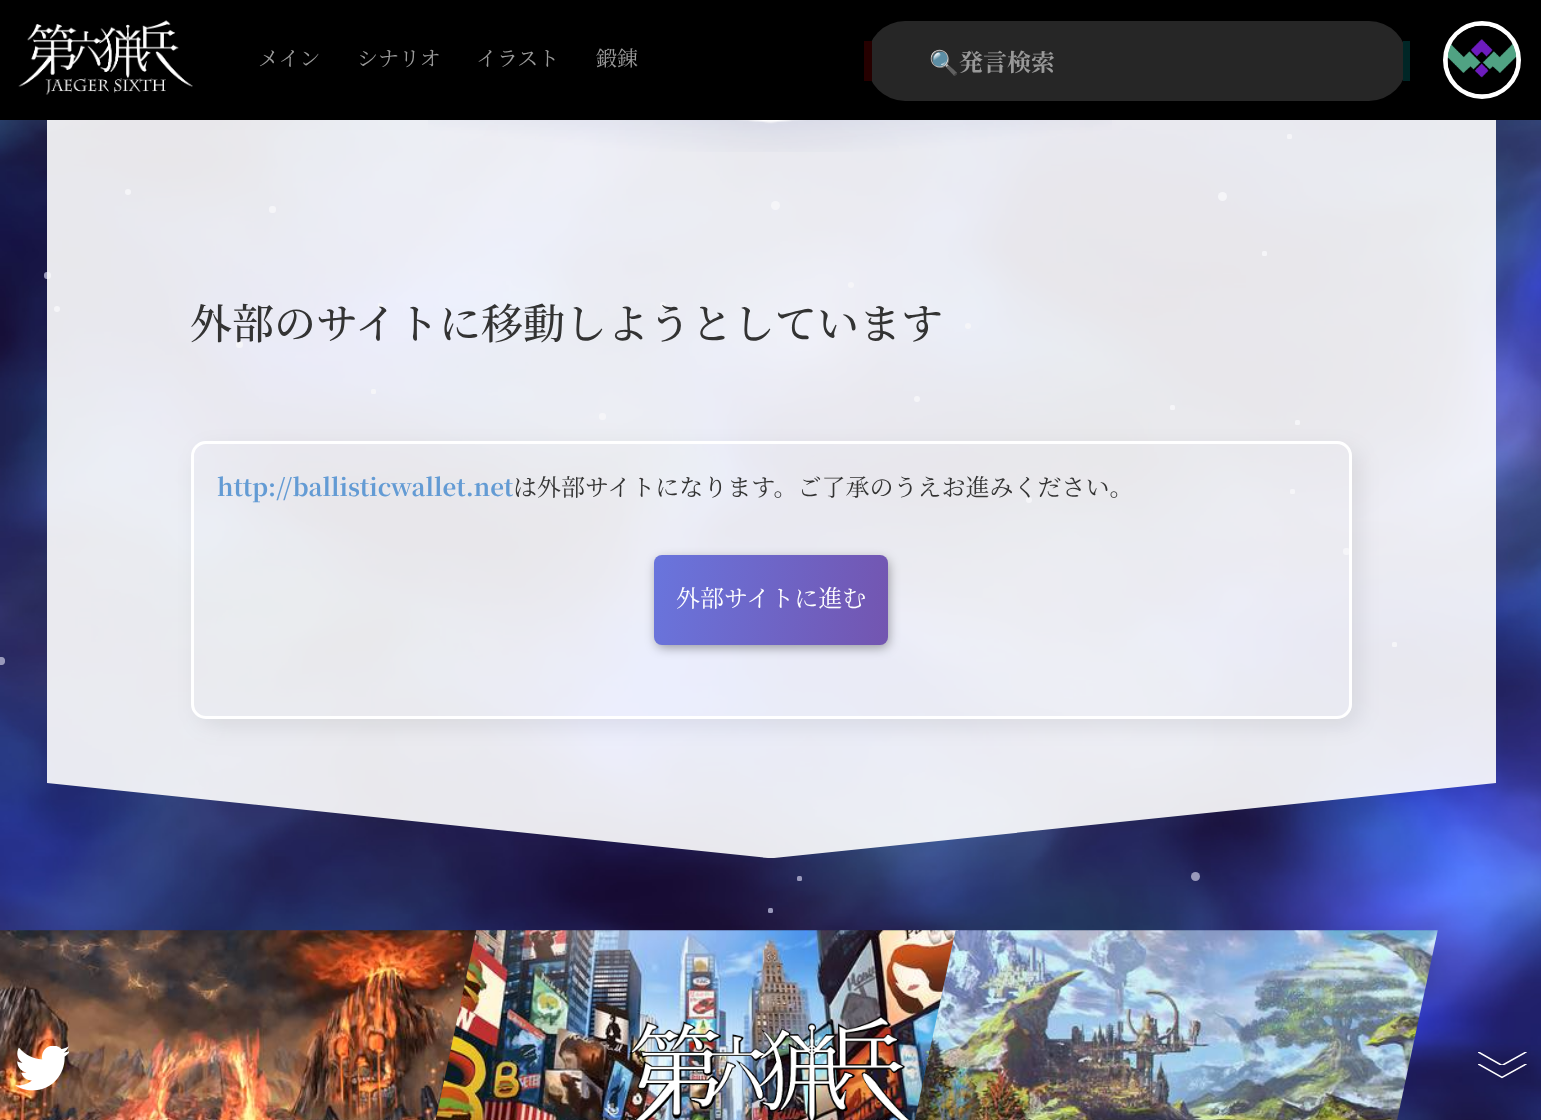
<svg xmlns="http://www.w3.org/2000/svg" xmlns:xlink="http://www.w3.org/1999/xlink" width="1541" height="1120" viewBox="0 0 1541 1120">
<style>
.cls-1{font:21px Noto Serif JP;fill:#999999}
.cls-2{font:bold 24px Noto Color Emoji;fill:#999999}
.cls-3{font:bold 24px Noto Serif JP;fill:#999999}
.cls-4{font:500 42px Noto Serif JP;fill:#333333}
.cls-5{font:bold 24px Noto Serif JP;fill:#639bd4}
.cls-6{font:24px Noto Serif JP;fill:#333333}
.cls-7{font:24px Noto Serif JP;fill:#ffffff}
</style>
<defs>
<clipPath id="clip1"><path d="M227 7H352V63H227ZM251 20H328C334 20 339 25 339 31V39C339 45 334 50 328 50H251C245 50 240 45 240 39V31C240 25 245 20 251 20Z" clip-rule="evenodd"/></clipPath>
<clipPath id="clip2"><path d="M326 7H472V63H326ZM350 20H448C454 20 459 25 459 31V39C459 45 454 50 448 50H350C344 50 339 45 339 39V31C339 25 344 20 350 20Z" clip-rule="evenodd"/></clipPath>
<clipPath id="clip3"><path d="M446 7H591V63H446ZM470 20H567C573 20 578 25 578 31V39C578 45 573 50 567 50H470C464 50 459 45 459 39V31C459 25 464 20 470 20Z" clip-rule="evenodd"/></clipPath>
<clipPath id="clip4"><path d="M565 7H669V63H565ZM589 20H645C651 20 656 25 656 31V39C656 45 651 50 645 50H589C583 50 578 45 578 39V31C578 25 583 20 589 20Z" clip-rule="evenodd"/></clipPath>
<clipPath id="clip5"><path d="M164 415H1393V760H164ZM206 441H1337C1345.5 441 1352 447.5 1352 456V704C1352 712.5 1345.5 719 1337 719H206C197.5 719 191 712.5 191 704V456C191 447.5 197.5 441 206 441Z" clip-rule="evenodd"/></clipPath>
<linearGradient id="g1" gradientUnits="userSpaceOnUse" x1="650" y1="579" x2="892" y2="621"><stop offset="0" stop-color="#6975dd"/><stop offset="1" stop-color="#7355b0"/></linearGradient>
<clipPath id="clip6"><rect x="1478" y="1052" width="49" height="13"/></clipPath>
<clipPath id="clip7"><rect x="1478" y="1064" width="49" height="15"/></clipPath>
<clipPath id="clip8"><rect x="929" y="44" width="417" height="34"/></clipPath>
</defs>
<rect width="100%" height="100%" fill="#ffffff"/>
<image xlink:href="image2.png" x="0" y="120" width="1541" height="1000"/>
<rect fill="#9999bb" x="1287" y="134" width="5" height="5" rx="1.5"/>
<circle fill="#9999bb" cx="128" cy="192" r="3"/>
<circle fill="#9999bb" cx="1222.5" cy="196.5" r="4.5"/>
<rect fill="#9999bb" x="269" y="206" width="7" height="7" rx="3"/>
<circle fill="#9999bb" cx="775.5" cy="205.5" r="4.5"/>
<rect fill="#9999bb" x="1262" y="251" width="5" height="5" rx="1.5"/>
<rect fill="#9999bb" x="44" y="272" width="7" height="7" rx="3"/>
<circle fill="#9999bb" cx="851" cy="285" r="3"/>
<rect fill="#9999bb" x="378" y="303" width="5" height="5" rx="1.5"/>
<circle fill="#9999bb" cx="663" cy="305" r="3"/>
<circle fill="#9999bb" cx="57" cy="309" r="3"/>
<circle fill="#9999bb" cx="968" cy="326" r="3"/>
<rect fill="#9999bb" x="236" y="341" width="7" height="7" rx="3"/>
<rect fill="#9999bb" x="371" y="389" width="5" height="5" rx="1.5"/>
<circle fill="#9999bb" cx="917" cy="399" r="3"/>
<rect fill="#9999bb" x="1170" y="405" width="5" height="5" rx="1.5"/>
<rect fill="#9999bb" x="599" y="413" width="7" height="7" rx="3"/>
<rect fill="#9999bb" x="1295" y="420" width="5" height="5" rx="1.5"/>
<rect fill="#9999bb" x="1290" y="489" width="5" height="5" rx="1.5"/>
<circle fill="#9999bb" cx="1029" cy="500" r="3"/>
<rect fill="#9999bb" x="1343" y="548" width="7" height="7" rx="3"/>
<rect fill="#9999bb" x="1392" y="642" width="5" height="5" rx="1.5"/>
<path fill="#ffffff" fill-opacity="0.9" d="M768 858L47 783V45L771 120L1496 45V783L774 858Z"/>
<rect fill="#000000" x="0" y="0" width="1541" height="120"/>
<image xlink:href="image0.png" x="18" y="20" width="175" height="75"/>
<g clip-path="url(#clip1)">
<rect fill="#000000" fill-opacity="0.2" filter="blur(4px)" x="240" y="20" width="99" height="30" rx="11"/>
</g>
<g clip-path="url(#clip2)">
<rect fill="#000000" fill-opacity="0.2" filter="blur(4px)" x="339" y="20" width="120" height="30" rx="11"/>
</g>
<g clip-path="url(#clip3)">
<rect fill="#000000" fill-opacity="0.2" filter="blur(4px)" x="459" y="20" width="119" height="30" rx="11"/>
</g>
<g clip-path="url(#clip4)">
<rect fill="#000000" fill-opacity="0.2" filter="blur(4px)" x="578" y="20" width="78" height="30" rx="11"/>
</g>
<rect fill="#262626" x="867" y="21" width="540" height="80" rx="38"/>
<rect fill="#260000" x="864" y="41" width="8" height="40"/>
<rect fill="#002626" x="1403" y="41" width="7" height="40"/>
<circle fill="none" stroke="#ffffff" stroke-width="5" cx="1482" cy="60" r="36.5"/>
<image xlink:href="image1.png" x="1447" y="25" width="70" height="70"/>
<path fill="#9999bb" d="M0 657H2C3.5 657 5 658.5 5 660V662C5 663.5 3.5 665 2 665H0Z"/>
<rect fill="#9999bb" x="797" y="876" width="5" height="5" rx="1.5"/>
<circle fill="#9999bb" cx="1195.5" cy="876.5" r="4.5"/>
<rect fill="#9999bb" x="768" y="908" width="5" height="5" rx="1.5"/>
<image xlink:href="image3.png" x="428" y="120" width="684" height="32"/>
<g clip-path="url(#clip5)">
<rect fill="#000000" fill-opacity="0.08" filter="blur(11px)" x="198" y="449" width="1161" height="277" rx="15"/>
</g>
<rect fill="none" stroke="#ffffff" stroke-width="3" x="192.5" y="442.5" width="1158" height="275" rx="13.5"/>
<rect fill="#000000" fill-opacity="0.4" filter="blur(6px)" x="657" y="560" width="231" height="87" rx="6"/>
<rect fill="url(#g1)" x="654" y="555" width="234" height="90" rx="8"/>
<image xlink:href="image4.png" x="0" y="930" width="480" height="190"/>
<image xlink:href="image5.png" x="435" y="930" width="524" height="190"/>
<image xlink:href="image6.png" x="915" y="930" width="523" height="190"/>
<image xlink:href="image7.png" x="629" y="1015" width="281" height="105"/>
<image xlink:href="image8.png" x="15" y="1046" width="54" height="45"/>
<g clip-path="url(#clip6)">
<path fill="none" stroke="#ffffff" stroke-width="1.5" d="M1477.5 1051.5L1502 1065.5L1527 1051.5"/>
</g>
<g clip-path="url(#clip7)">
<path fill="none" stroke="#ffffff" stroke-width="1.5" d="M1477.5 1063.5L1502 1077.5L1527 1063.5"/>
</g>
<text class="cls-1" x="258" y="66">メイン</text>
<text class="cls-1" x="357" y="66">シナリオ</text>
<text class="cls-1" x="476" y="66">イラスト</text>
<text class="cls-1" x="596" y="66">鍛錬</text>
<g clip-path="url(#clip8)">
<text class="cls-2" x="929" y="71">🔍</text>
</g>
<text class="cls-3" x="959" y="71">発言検索</text>
<text class="cls-4" x="190" y="339">外部のサイトに移動しようとしています</text>
<text class="cls-5" x="217" y="496">http://ballisticwallet.net</text>
<text class="cls-6" x="513" y="496">は外部サイトになります。ご了承のうえお進みください。</text>
<text class="cls-7" x="676" y="607">外部サイトに進む</text>
</svg>
